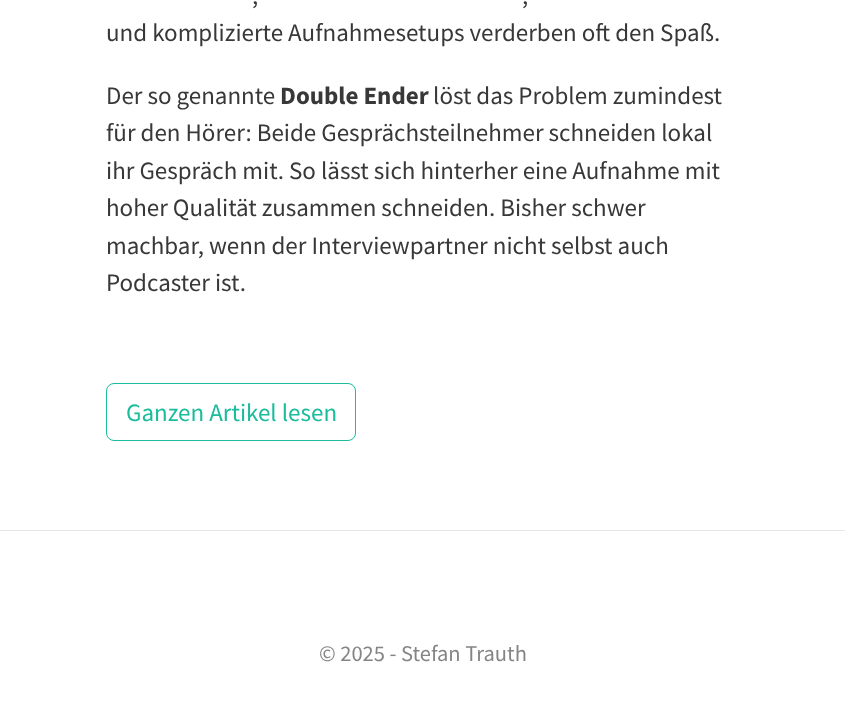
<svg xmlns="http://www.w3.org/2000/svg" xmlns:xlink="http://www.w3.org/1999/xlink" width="845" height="706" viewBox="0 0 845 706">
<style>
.cls-1{font:25px Source Sans Pro;fill:#383838}
.cls-2{font:bold 25px Source Sans Pro;fill:#383838}
.cls-3{font:25px Source Sans Pro;fill:#1abc9c}
.cls-4{font:22.5px Source Sans Pro;fill:#858585}
</style>
<rect width="100%" height="100%" fill="#ffffff"/>
<rect fill="#e6e6e6" x="0" y="530" width="845" height="1"/>
<rect fill="none" stroke="#1abc9c" x="106.5" y="383.5" width="249" height="57" rx="7.5"/>
<text class="cls-1" x="252" y="4">,</text>
<text class="cls-1" x="522" y="4">,</text>
<text class="cls-1" x="106" y="41">und komplizierte Aufnahmesetups verderben oft den Spaß.</text>
<text class="cls-1" x="106" y="104">Der so genannte</text>
<text class="cls-2" x="280" y="104">Double Ender</text>
<text class="cls-1" x="433" y="104">löst das Problem zumindest</text>
<text class="cls-1"><tspan x="106" y="141">für den Hörer: Beide Gesprächsteilnehmer schneiden lokal</tspan><tspan x="106" y="179">ihr Gespräch mit. So lässt sich hinterher eine Aufnahme mit</tspan><tspan x="106" y="216">hoher Qualität zusammen schneiden. Bisher schwer</tspan><tspan x="106" y="254">machbar, wenn der Interviewpartner nicht selbst auch</tspan><tspan x="106" y="291">Podcaster ist.</tspan></text>
<text class="cls-3" x="126" y="421">Ganzen Artikel lesen</text>
<text class="cls-4" x="319" y="661">© 2025 - Stefan Trauth</text>
</svg>
